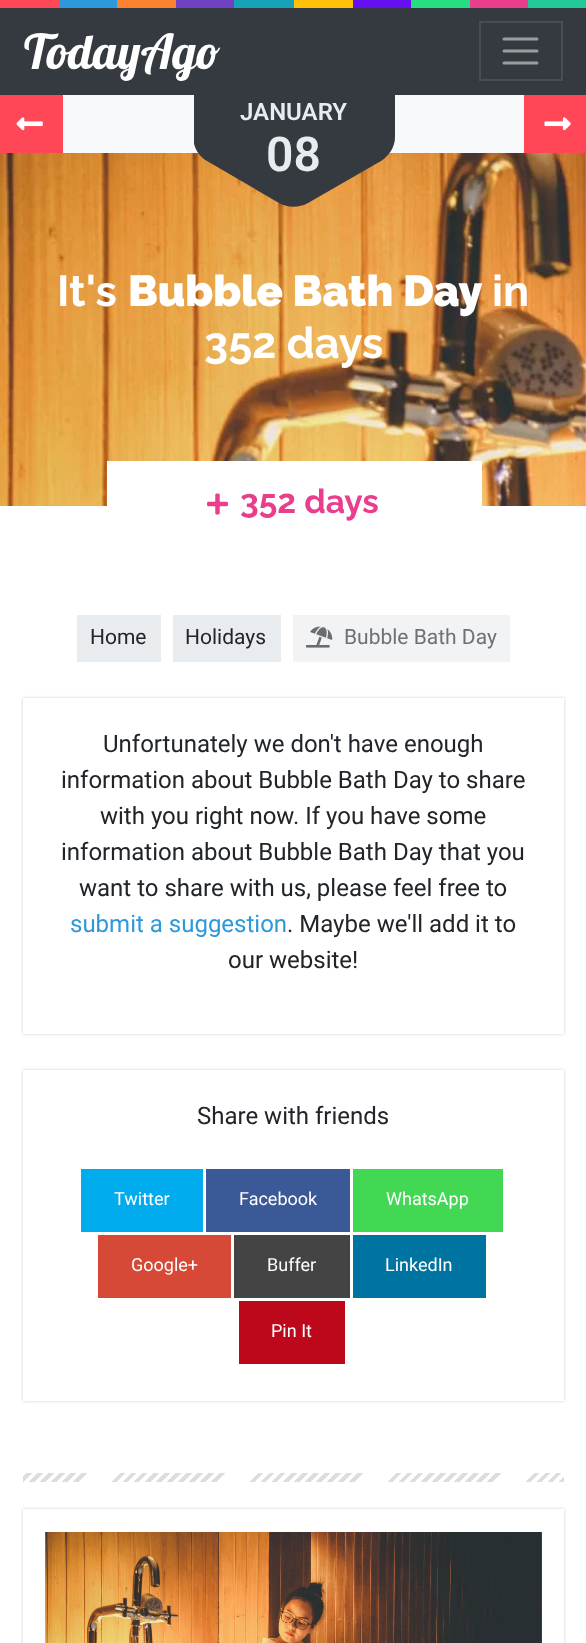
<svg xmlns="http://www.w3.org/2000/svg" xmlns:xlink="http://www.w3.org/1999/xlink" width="586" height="1643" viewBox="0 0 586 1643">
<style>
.cls-1{font:48px Lobster;fill:#ffffff}
.cls-2{font:600 24px Roboto;fill:#e9ecef}
.cls-3{font:600 48px Roboto;fill:#e9ecef}
.cls-4{font:bold 43.25px Raleway;fill:#ffffff}
.cls-5{font:900 43.25px Raleway;fill:#ffffff}
.cls-6{font:bold 33.5px Raleway;fill:#e83e8c}
.cls-7{font:21px Roboto;fill:#212529}
.cls-8{font:21px Roboto;fill:#6f7174}
.cls-9{font:24px Roboto;fill:#212529}
.cls-10{font:24px Roboto;fill:#2d98da}
.cls-11{font:18px Roboto;fill:#ffffff}
</style>
<defs>
<clipPath id="clip1"><rect x="194" y="95" width="201" height="112"/></clipPath>
<clipPath id="clip2"><path d="M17 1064H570V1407H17ZM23 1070H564V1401H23Z" clip-rule="evenodd"/></clipPath>
<linearGradient id="g1" gradientUnits="userSpaceOnUse" x1="431" y1="1615" x2="155" y2="1339"><stop offset="0" stop-color="#dddddd"/><stop offset="0.01" stop-color="#dddddd"/><stop offset="0.01" stop-color="#ffffff"/><stop offset="0.02" stop-color="#ffffff"/><stop offset="0.02" stop-color="#dddddd"/><stop offset="0.03" stop-color="#dddddd"/><stop offset="0.03" stop-color="#ffffff"/><stop offset="0.04" stop-color="#ffffff"/><stop offset="0.04" stop-color="#dddddd"/><stop offset="0.05" stop-color="#dddddd"/><stop offset="0.05" stop-color="#ffffff"/><stop offset="0.06" stop-color="#ffffff"/><stop offset="0.06" stop-color="#dddddd"/><stop offset="0.07" stop-color="#dddddd"/><stop offset="0.07" stop-color="#ffffff"/><stop offset="0.08" stop-color="#ffffff"/><stop offset="0.08" stop-color="#dddddd"/><stop offset="0.08" stop-color="#ffffff"/><stop offset="0.1" stop-color="#ffffff"/><stop offset="0.1" stop-color="#dddddd"/><stop offset="0.1" stop-color="#ffffff"/><stop offset="0.12" stop-color="#ffffff"/><stop offset="0.12" stop-color="#dddddd"/><stop offset="0.12" stop-color="#ffffff"/><stop offset="0.13" stop-color="#ffffff"/><stop offset="0.13" stop-color="#dddddd"/><stop offset="0.14" stop-color="#dddddd"/><stop offset="0.14" stop-color="#ffffff"/><stop offset="0.15" stop-color="#ffffff"/><stop offset="0.15" stop-color="#dddddd"/><stop offset="0.16" stop-color="#dddddd"/><stop offset="0.16" stop-color="#ffffff"/><stop offset="0.17" stop-color="#ffffff"/><stop offset="0.17" stop-color="#dddddd"/><stop offset="0.18" stop-color="#dddddd"/><stop offset="0.18" stop-color="#ffffff"/><stop offset="0.19" stop-color="#ffffff"/><stop offset="0.19" stop-color="#dddddd"/><stop offset="0.2" stop-color="#dddddd"/><stop offset="0.2" stop-color="#ffffff"/><stop offset="0.21" stop-color="#ffffff"/><stop offset="0.21" stop-color="#dddddd"/><stop offset="0.22" stop-color="#dddddd"/><stop offset="0.22" stop-color="#ffffff"/><stop offset="0.23" stop-color="#ffffff"/><stop offset="0.23" stop-color="#dddddd"/><stop offset="0.24" stop-color="#dddddd"/><stop offset="0.24" stop-color="#ffffff"/><stop offset="0.25" stop-color="#ffffff"/><stop offset="0.25" stop-color="#dddddd"/><stop offset="0.26" stop-color="#dddddd"/><stop offset="0.26" stop-color="#ffffff"/><stop offset="0.27" stop-color="#ffffff"/><stop offset="0.27" stop-color="#dddddd"/><stop offset="0.28" stop-color="#dddddd"/><stop offset="0.28" stop-color="#ffffff"/><stop offset="0.29" stop-color="#ffffff"/><stop offset="0.29" stop-color="#dddddd"/><stop offset="0.3" stop-color="#dddddd"/><stop offset="0.3" stop-color="#ffffff"/><stop offset="0.31" stop-color="#ffffff"/><stop offset="0.31" stop-color="#dddddd"/><stop offset="0.32" stop-color="#dddddd"/><stop offset="0.32" stop-color="#ffffff"/><stop offset="0.33" stop-color="#ffffff"/><stop offset="0.33" stop-color="#dddddd"/><stop offset="0.33" stop-color="#ffffff"/><stop offset="0.35" stop-color="#ffffff"/><stop offset="0.35" stop-color="#dddddd"/><stop offset="0.35" stop-color="#ffffff"/><stop offset="0.37" stop-color="#ffffff"/><stop offset="0.37" stop-color="#dddddd"/><stop offset="0.37" stop-color="#ffffff"/><stop offset="0.38" stop-color="#ffffff"/><stop offset="0.38" stop-color="#dddddd"/><stop offset="0.39" stop-color="#dddddd"/><stop offset="0.39" stop-color="#ffffff"/><stop offset="0.4" stop-color="#ffffff"/><stop offset="0.4" stop-color="#dddddd"/><stop offset="0.41" stop-color="#dddddd"/><stop offset="0.41" stop-color="#ffffff"/><stop offset="0.42" stop-color="#ffffff"/><stop offset="0.42" stop-color="#dddddd"/><stop offset="0.43" stop-color="#dddddd"/><stop offset="0.43" stop-color="#ffffff"/><stop offset="0.44" stop-color="#ffffff"/><stop offset="0.44" stop-color="#dddddd"/><stop offset="0.45" stop-color="#dddddd"/><stop offset="0.45" stop-color="#ffffff"/><stop offset="0.46" stop-color="#ffffff"/><stop offset="0.46" stop-color="#dddddd"/><stop offset="0.47" stop-color="#dddddd"/><stop offset="0.47" stop-color="#ffffff"/><stop offset="0.48" stop-color="#ffffff"/><stop offset="0.48" stop-color="#dddddd"/><stop offset="0.49" stop-color="#dddddd"/><stop offset="0.49" stop-color="#ffffff"/><stop offset="0.5" stop-color="#ffffff"/><stop offset="0.5" stop-color="#dddddd"/><stop offset="0.51" stop-color="#dddddd"/><stop offset="0.51" stop-color="#ffffff"/><stop offset="0.52" stop-color="#ffffff"/><stop offset="0.52" stop-color="#dddddd"/><stop offset="0.53" stop-color="#dddddd"/><stop offset="0.53" stop-color="#ffffff"/><stop offset="0.54" stop-color="#ffffff"/><stop offset="0.54" stop-color="#dddddd"/><stop offset="0.55" stop-color="#dddddd"/><stop offset="0.55" stop-color="#ffffff"/><stop offset="0.56" stop-color="#ffffff"/><stop offset="0.56" stop-color="#dddddd"/><stop offset="0.57" stop-color="#dddddd"/><stop offset="0.57" stop-color="#ffffff"/><stop offset="0.58" stop-color="#ffffff"/><stop offset="0.58" stop-color="#dddddd"/><stop offset="0.58" stop-color="#ffffff"/><stop offset="0.6" stop-color="#ffffff"/><stop offset="0.6" stop-color="#dddddd"/><stop offset="0.6" stop-color="#ffffff"/><stop offset="0.62" stop-color="#ffffff"/><stop offset="0.62" stop-color="#dddddd"/><stop offset="0.62" stop-color="#ffffff"/><stop offset="0.63" stop-color="#ffffff"/><stop offset="0.63" stop-color="#dddddd"/><stop offset="0.64" stop-color="#dddddd"/><stop offset="0.64" stop-color="#ffffff"/><stop offset="0.65" stop-color="#ffffff"/><stop offset="0.65" stop-color="#dddddd"/><stop offset="0.66" stop-color="#dddddd"/><stop offset="0.66" stop-color="#ffffff"/><stop offset="0.67" stop-color="#ffffff"/><stop offset="0.67" stop-color="#dddddd"/><stop offset="0.68" stop-color="#dddddd"/><stop offset="0.68" stop-color="#ffffff"/><stop offset="0.69" stop-color="#ffffff"/><stop offset="0.69" stop-color="#dddddd"/><stop offset="0.7" stop-color="#dddddd"/><stop offset="0.7" stop-color="#ffffff"/><stop offset="0.71" stop-color="#ffffff"/><stop offset="0.71" stop-color="#dddddd"/><stop offset="0.72" stop-color="#dddddd"/><stop offset="0.72" stop-color="#ffffff"/><stop offset="0.73" stop-color="#ffffff"/><stop offset="0.73" stop-color="#dddddd"/><stop offset="0.74" stop-color="#dddddd"/><stop offset="0.74" stop-color="#ffffff"/><stop offset="0.75" stop-color="#ffffff"/><stop offset="0.75" stop-color="#dddddd"/><stop offset="0.76" stop-color="#dddddd"/><stop offset="0.76" stop-color="#ffffff"/><stop offset="0.77" stop-color="#ffffff"/><stop offset="0.77" stop-color="#dddddd"/><stop offset="0.78" stop-color="#dddddd"/><stop offset="0.78" stop-color="#ffffff"/><stop offset="0.79" stop-color="#ffffff"/><stop offset="0.79" stop-color="#dddddd"/><stop offset="0.8" stop-color="#dddddd"/><stop offset="0.8" stop-color="#ffffff"/><stop offset="0.81" stop-color="#ffffff"/><stop offset="0.81" stop-color="#dddddd"/><stop offset="0.82" stop-color="#dddddd"/><stop offset="0.82" stop-color="#ffffff"/><stop offset="0.83" stop-color="#ffffff"/><stop offset="0.83" stop-color="#dddddd"/><stop offset="0.83" stop-color="#ffffff"/><stop offset="0.85" stop-color="#ffffff"/><stop offset="0.85" stop-color="#dddddd"/><stop offset="0.85" stop-color="#ffffff"/><stop offset="0.87" stop-color="#ffffff"/><stop offset="0.87" stop-color="#dddddd"/><stop offset="0.87" stop-color="#ffffff"/><stop offset="0.88" stop-color="#ffffff"/><stop offset="0.88" stop-color="#dddddd"/><stop offset="0.89" stop-color="#dddddd"/><stop offset="0.89" stop-color="#ffffff"/><stop offset="0.9" stop-color="#ffffff"/><stop offset="0.9" stop-color="#dddddd"/><stop offset="0.91" stop-color="#dddddd"/><stop offset="0.91" stop-color="#ffffff"/><stop offset="0.92" stop-color="#ffffff"/><stop offset="0.92" stop-color="#dddddd"/><stop offset="0.93" stop-color="#dddddd"/><stop offset="0.93" stop-color="#ffffff"/><stop offset="0.94" stop-color="#ffffff"/><stop offset="0.94" stop-color="#dddddd"/><stop offset="0.95" stop-color="#dddddd"/><stop offset="0.95" stop-color="#ffffff"/><stop offset="0.96" stop-color="#ffffff"/><stop offset="0.96" stop-color="#dddddd"/><stop offset="0.97" stop-color="#dddddd"/><stop offset="0.97" stop-color="#ffffff"/><stop offset="0.98" stop-color="#ffffff"/><stop offset="0.98" stop-color="#dddddd"/><stop offset="0.99" stop-color="#dddddd"/><stop offset="0.99" stop-color="#ffffff"/><stop offset="1" stop-color="#ffffff"/></linearGradient>
<clipPath id="clip3"><path d="M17 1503H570V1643H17ZM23 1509H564V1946H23Z" clip-rule="evenodd"/></clipPath>
</defs>
<rect width="100%" height="100%" fill="#ffffff"/>
<rect fill="#ff4757" x="0" y="0" width="59" height="8"/>
<rect fill="#2d98da" x="59" y="0" width="58" height="8"/>
<rect fill="#fa8231" x="117" y="0" width="59" height="8"/>
<rect fill="#6f42c1" x="176" y="0" width="58" height="8"/>
<rect fill="#17a2b8" x="234" y="0" width="60" height="8"/>
<rect fill="#ffc107" x="294" y="0" width="59" height="8"/>
<rect fill="#6610f2" x="353" y="0" width="58" height="8"/>
<rect fill="#26de81" x="411" y="0" width="59" height="8"/>
<rect fill="#e83e8c" x="470" y="0" width="58" height="8"/>
<rect fill="#20c997" x="528" y="0" width="58" height="8"/>
<rect fill="#343a40" x="0" y="8" width="586" height="87"/>
<rect fill="none" stroke="#484e53" stroke-width="2" x="480" y="22" width="82" height="58"/>
<path fill="none" stroke="#9a9da0" stroke-width="3" stroke-linecap="round" d="M504 39H537M504 51H537M504 63H537"/>
<rect fill="#f8f9fa" x="63" y="95" width="461" height="58"/>
<rect fill="#ff4757" x="0" y="95" width="63" height="58"/>
<image xlink:href="image0.png" x="16" y="117" width="27" height="14"/>
<image xlink:href="image2.png" x="0" y="153" width="586" height="353"/>
<g clip-path="url(#clip1)">
<path fill="#343a40" d="M381 28L309-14C300-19 289-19 280-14L207 28C199 33 193 42 193 52V136C193 146 198 156 207 161L279 203C288 208 299 208 308 203L381 161C389 156 395 147 395 137V53C395 43 390 33 381 28Z"/>
</g>
<rect fill="#ff4757" x="524" y="95" width="62" height="58"/>
<image xlink:href="image1.png" x="544" y="117" width="27" height="14"/>
<rect fill="#ffffff" x="107" y="461" width="375" height="45"/>
<image xlink:href="image3.png" x="207" y="493" width="21" height="22"/>
<rect fill="#e9ecef" x="77" y="615" width="84" height="47"/>
<rect fill="#e9ecef" x="173" y="615" width="108" height="47"/>
<rect fill="#f1f3f5" x="293" y="615" width="217" height="47"/>
<image xlink:href="image4.png" x="306" y="626" width="27" height="22"/>
<rect fill="#000000" fill-opacity="0.2" filter="blur(1.5px)" x="23" y="698" width="541" height="336"/>
<rect fill="#ffffff" x="23" y="698" width="541" height="336"/>
<g clip-path="url(#clip2)">
<rect fill="#000000" fill-opacity="0.2" filter="blur(1.5px)" x="23" y="1070" width="541" height="331"/>
</g>
<rect fill="#00aced" x="81" y="1169" width="122" height="63"/>
<rect fill="#3b5997" x="206" y="1169" width="144" height="63"/>
<rect fill="#43d854" x="353" y="1169" width="150" height="63"/>
<rect fill="#d64937" x="98" y="1235" width="133" height="63"/>
<rect fill="#444444" x="234" y="1235" width="116" height="63"/>
<rect fill="#0074a1" x="353" y="1235" width="133" height="63"/>
<rect fill="#bd081c" x="239" y="1301" width="106" height="63"/>
<rect fill="url(#g1)" x="23" y="1473" width="541" height="9"/>
<g clip-path="url(#clip3)">
<rect fill="#000000" fill-opacity="0.2" filter="blur(1.5px)" x="23" y="1509" width="541" height="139"/>
</g>
<image xlink:href="image5.png" x="45" y="1532" width="497" height="111"/>
<text class="cls-1" x="24" y="69">TodayAgo</text>
<text class="cls-2" x="240" y="120">JANUARY</text>
<text class="cls-3" x="266" y="171">08</text>
<text class="cls-4" x="57" y="306">It's</text>
<text class="cls-5" x="128" y="306">Bubble Bath Day</text>
<text class="cls-4" x="492" y="306">in</text>
<text class="cls-4" x="204" y="358">352 days</text>
<text class="cls-6" x="240" y="513">352 days</text>
<text class="cls-7" x="90" y="644">Home</text>
<text class="cls-7" x="185" y="644">Holidays</text>
<text class="cls-8" x="344" y="644">Bubble Bath Day</text>
<text class="cls-9" x="103" y="752">Unfortunately we don't have enough</text>
<text class="cls-9" x="61" y="788">information about Bubble Bath Day to share</text>
<text class="cls-9" x="100" y="824">with you right now. If you have some</text>
<text class="cls-9" x="61" y="860">information about Bubble Bath Day that you</text>
<text class="cls-9" x="79" y="896">want to share with us, please feel free to</text>
<text class="cls-10" x="70" y="932">submit a suggestion</text>
<text class="cls-9" x="287" y="932">. Maybe we'll add it to</text>
<text class="cls-9" x="228" y="968">our website!</text>
<text class="cls-9" x="197" y="1124">Share with friends</text>
<text class="cls-11" x="114" y="1205">Twitter</text>
<text class="cls-11" x="239" y="1205">Facebook</text>
<text class="cls-11" x="386" y="1205">WhatsApp</text>
<text class="cls-11" x="131" y="1271">Google+</text>
<text class="cls-11" x="267" y="1271">Buffer</text>
<text class="cls-11" x="385" y="1271">LinkedIn</text>
<text class="cls-11" x="271" y="1337">Pin It</text>
</svg>
